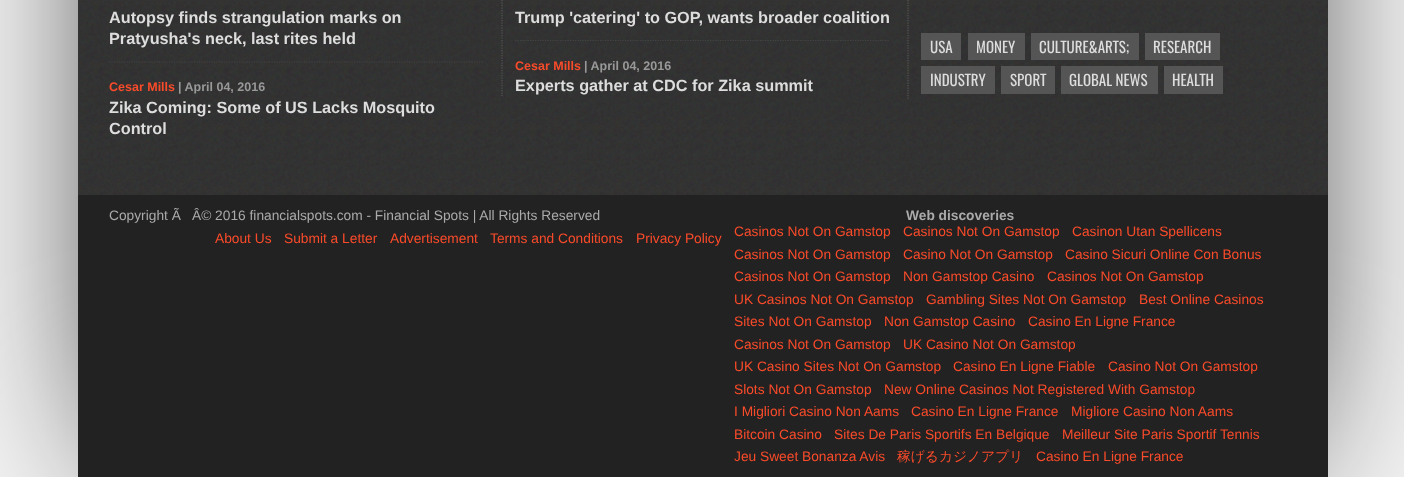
<svg xmlns="http://www.w3.org/2000/svg" xmlns:xlink="http://www.w3.org/1999/xlink" width="1404" height="477" viewBox="0 0 1404 477">
<style>
.cls-1{font:bold 16.25px Liberation Sans;fill:#dddddd}
.cls-2{font:bold 12.5px Liberation Sans;fill:#fa4b2a}
.cls-3{font:bold 12.5px Liberation Sans;fill:#999999}
.cls-4{font:15px Oswald;fill:#dddddd}
.cls-5{font:13.75px Liberation Sans;fill:#aaaaaa}
.cls-6{font:bold 13.75px Liberation Sans;fill:#aaaaaa}
.cls-7{font:13.75px Liberation Sans;fill:#fa4b2a}
.cls-8{font:500 13.75px WenQuanYi Zen Hei;fill:#fa4b2a}
</style>
<rect width="100%" height="100%" fill="#f5f5f5"/>
<rect fill="#000000" filter="blur(94px)" x="128" y="-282" width="1150" height="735"/>
<rect fill="#333333" x="78" y="0" width="1250" height="195"/>
<image xlink:href="image0.png" x="79" y="1" width="1249" height="194"/>
<path fill="none" stroke="#444444" stroke-width="1.2" stroke-dasharray="1.25 1.25" d="M109 62H484"/>
<path fill="none" stroke="#555555" stroke-width="1.2" stroke-dasharray="1.25 1.25" d="M502-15V96"/>
<path fill="none" stroke="#444444" stroke-width="1.2" stroke-dasharray="1.25 1.25" d="M515 40.5H890"/>
<path fill="none" stroke="#555555" stroke-width="1.2" stroke-dasharray="1.25 1.25" d="M908-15V100"/>
<rect fill="#555555" x="921" y="33" width="40" height="27"/>
<rect fill="#555555" x="968" y="33" width="57" height="27"/>
<rect fill="#555555" x="1031" y="33" width="108" height="27"/>
<rect fill="#555555" x="1145" y="33" width="75" height="27"/>
<rect fill="#555555" x="921" y="66" width="74" height="28"/>
<rect fill="#555555" x="1001" y="66" width="54" height="28"/>
<rect fill="#555555" x="1061" y="66" width="97" height="28"/>
<rect fill="#555555" x="1164" y="66" width="59" height="28"/>
<rect fill="#222222" x="78" y="195" width="1250" height="282"/>
<text class="cls-1"><tspan x="109" y="23">Autopsy finds strangulation marks on</tspan><tspan x="109" y="44">Pratyusha's neck, last rites held</tspan></text>
<text class="cls-2" x="109" y="91">Cesar Mills</text>
<text class="cls-3" x="178" y="91">| April 04, 2016</text>
<text class="cls-1"><tspan x="109" y="113">Zika Coming: Some of US Lacks Mosquito</tspan><tspan x="109" y="134">Control</tspan></text>
<text class="cls-1" x="515" y="23">Trump 'catering' to GOP, wants broader coalition</text>
<text class="cls-2" x="515" y="70">Cesar Mills</text>
<text class="cls-3" x="584" y="70">| April 04, 2016</text>
<text class="cls-1" x="515" y="91">Experts gather at CDC for Zika summit</text>
<text class="cls-4" x="930" y="53">USA</text>
<text class="cls-4" x="976" y="53">MONEY</text>
<text class="cls-4" x="1039" y="53">CULTURE&amp;ARTS;</text>
<text class="cls-4" x="1153" y="53">RESEARCH</text>
<text class="cls-4" x="930" y="86">INDUSTRY</text>
<text class="cls-4" x="1010" y="86">SPORT</text>
<text class="cls-4" x="1069" y="86">GLOBAL NEWS</text>
<text class="cls-4" x="1172" y="86">HEALTH</text>
<text class="cls-5" x="109" y="220">Copyright Ã</text>
<text class="cls-5" x="192" y="220">Â© 2016 financialspots.com - Financial Spots | All Rights Reserved</text>
<text class="cls-6" x="906" y="220">Web discoveries</text>
<text class="cls-7" x="734" y="236">Casinos Not On Gamstop</text>
<text class="cls-7" x="903" y="236">Casinos Not On Gamstop</text>
<text class="cls-7" x="1072" y="236">Casinon Utan Spellicens</text>
<text class="cls-7" x="734" y="259">Casinos Not On Gamstop</text>
<text class="cls-7" x="903" y="259">Casino Not On Gamstop</text>
<text class="cls-7" x="1065" y="259">Casino Sicuri Online Con Bonus</text>
<text class="cls-7" x="734" y="281">Casinos Not On Gamstop</text>
<text class="cls-7" x="903" y="281">Non Gamstop Casino</text>
<text class="cls-7" x="1047" y="281">Casinos Not On Gamstop</text>
<text class="cls-7" x="734" y="304">UK Casinos Not On Gamstop</text>
<text class="cls-7" x="926" y="304">Gambling Sites Not On Gamstop</text>
<text class="cls-7" x="1139" y="304">Best Online Casinos</text>
<text class="cls-7" x="734" y="326">Sites Not On Gamstop</text>
<text class="cls-7" x="884" y="326">Non Gamstop Casino</text>
<text class="cls-7" x="1028" y="326">Casino En Ligne France</text>
<text class="cls-7" x="734" y="349">Casinos Not On Gamstop</text>
<text class="cls-7" x="903" y="349">UK Casino Not On Gamstop</text>
<text class="cls-7" x="734" y="371">UK Casino Sites Not On Gamstop</text>
<text class="cls-7" x="953" y="371">Casino En Ligne Fiable</text>
<text class="cls-7" x="1108" y="371">Casino Not On Gamstop</text>
<text class="cls-7" x="734" y="394">Slots Not On Gamstop</text>
<text class="cls-7" x="884" y="394">New Online Casinos Not Registered With Gamstop</text>
<text class="cls-7" x="734" y="416">I Migliori Casino Non Aams</text>
<text class="cls-7" x="911" y="416">Casino En Ligne France</text>
<text class="cls-7" x="1071" y="416">Migliore Casino Non Aams</text>
<text class="cls-7" x="734" y="439">Bitcoin Casino</text>
<text class="cls-7" x="834" y="439">Sites De Paris Sportifs En Belgique</text>
<text class="cls-7" x="1062" y="439">Meilleur Site Paris Sportif Tennis</text>
<text class="cls-7" x="734" y="461">Jeu Sweet Bonanza Avis</text>
<text class="cls-8" x="897" y="461">稼げるカジノアプリ</text>
<text class="cls-7" x="1036" y="461">Casino En Ligne France</text>
<text class="cls-7" x="215" y="243">About Us</text>
<text class="cls-7" x="284" y="243">Submit a Letter</text>
<text class="cls-7" x="390" y="243">Advertisement</text>
<text class="cls-7" x="490" y="243">Terms and Conditions</text>
<text class="cls-7" x="636" y="243">Privacy Policy</text>
</svg>
